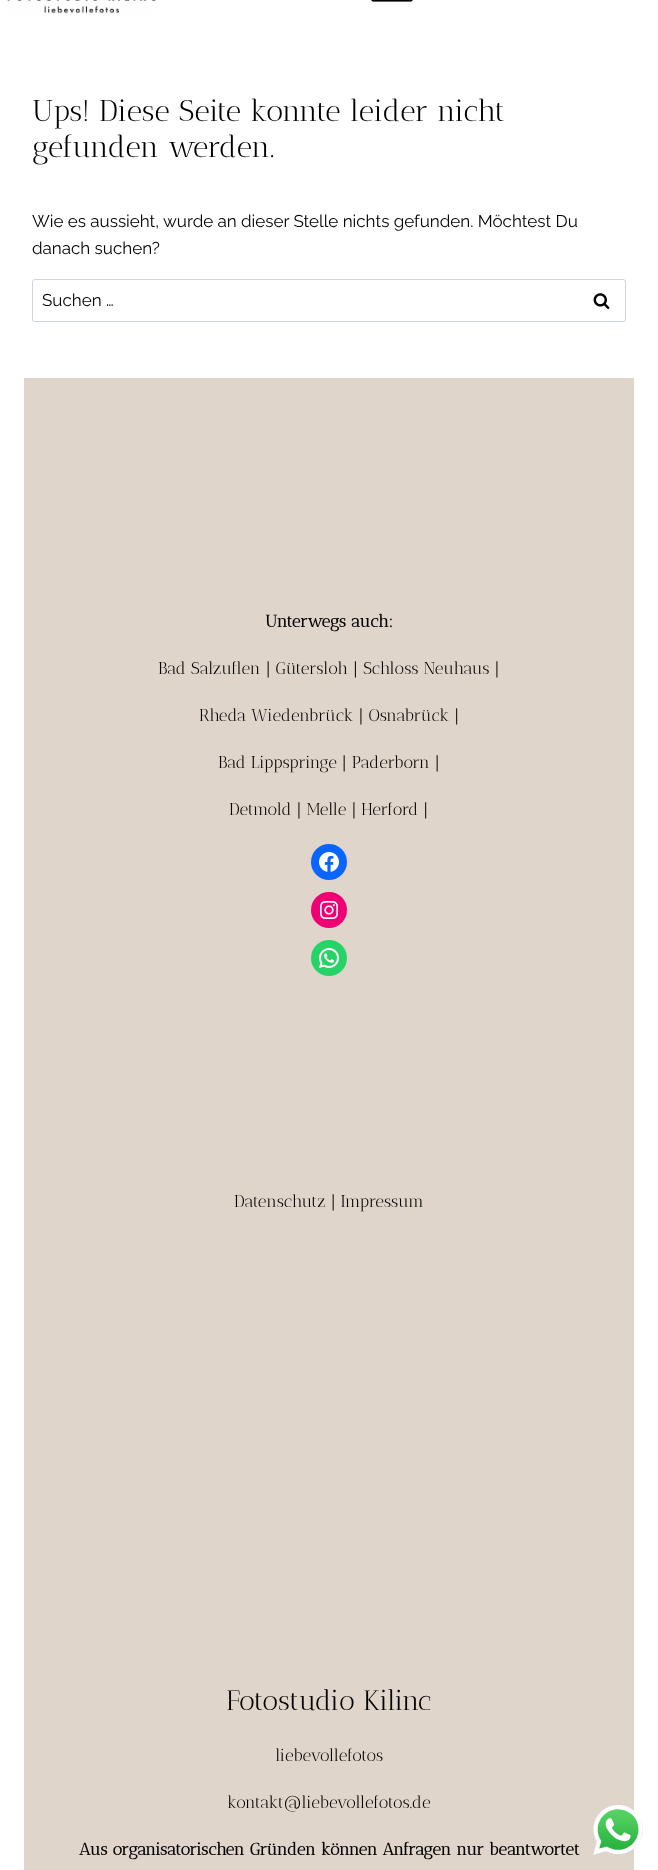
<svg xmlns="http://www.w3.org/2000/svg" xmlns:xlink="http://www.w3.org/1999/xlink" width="658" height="1870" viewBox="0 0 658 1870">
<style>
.cls-1{font:30px Antic Didone;fill:#000000}
.cls-2{font:17px Raleway;fill:#000000}
.cls-3{font:bold 17px Antic Didone;fill:#000000}
.cls-4{font:17px Antic Didone;fill:#000000}
.cls-5{font:28px Antic Didone;fill:#000000}
</style>
<rect width="100%" height="100%" fill="#ffffff"/>
<image xlink:href="image0.png" x="7" y="0" width="149" height="14"/>
<image xlink:href="image1.png" x="371" y="0" width="42" height="2"/>
<rect fill="none" stroke="#cbd5e0" x="32.5" y="279.5" width="593" height="42" rx="2.5"/>
<image xlink:href="image2.png" x="593" y="293" width="17" height="16"/>
<rect fill="#e0d5ca" x="24" y="378" width="610" height="1492"/>
<circle fill="#0866ff" cx="329" cy="862" r="18"/>
<image xlink:href="image3.png" x="319" y="852" width="20" height="20"/>
<circle fill="#f00075" cx="329" cy="910" r="18"/>
<image xlink:href="image4.png" x="320" y="901" width="18" height="18"/>
<circle fill="#25d366" cx="329" cy="958" r="18"/>
<image xlink:href="image5.png" x="319" y="948" width="20" height="20"/>
<image xlink:href="image6.png" x="593" y="1805" width="50" height="50"/>
<text class="cls-1"><tspan x="32" y="121">Ups! Diese Seite konnte leider nicht</tspan><tspan x="32" y="157">gefunden werden.</tspan></text>
<text class="cls-2"><tspan x="32" y="227">Wie es aussieht, wurde an dieser Stelle nichts gefunden. Möchtest Du</tspan><tspan x="32" y="254">danach suchen?</tspan></text>
<text class="cls-2" x="42" y="306">Suchen …</text>
<text class="cls-3" x="265" y="627">Unterwegs auch:</text>
<text class="cls-4" x="158" y="674">Bad Salzuflen | Gütersloh | Schloss Neuhaus |</text>
<text class="cls-4" x="199" y="721">Rheda Wiedenbrück | Osnabrück |</text>
<text class="cls-4" x="218" y="768">Bad Lippspringe | Paderborn |</text>
<text class="cls-4" x="229" y="815">Detmold | Melle | Herford |</text>
<text class="cls-4" x="234" y="1207">Datenschutz | Impressum</text>
<text class="cls-5" x="226" y="1710">Fotostudio Kilinc</text>
<text class="cls-4" x="275" y="1761">liebevollefotos</text>
<text class="cls-4" x="227" y="1808">kontakt@liebevollefotos.de</text>
<text class="cls-3" x="79" y="1855">Aus organisatorischen Gründen können Anfragen nur beantwortet</text>
</svg>
